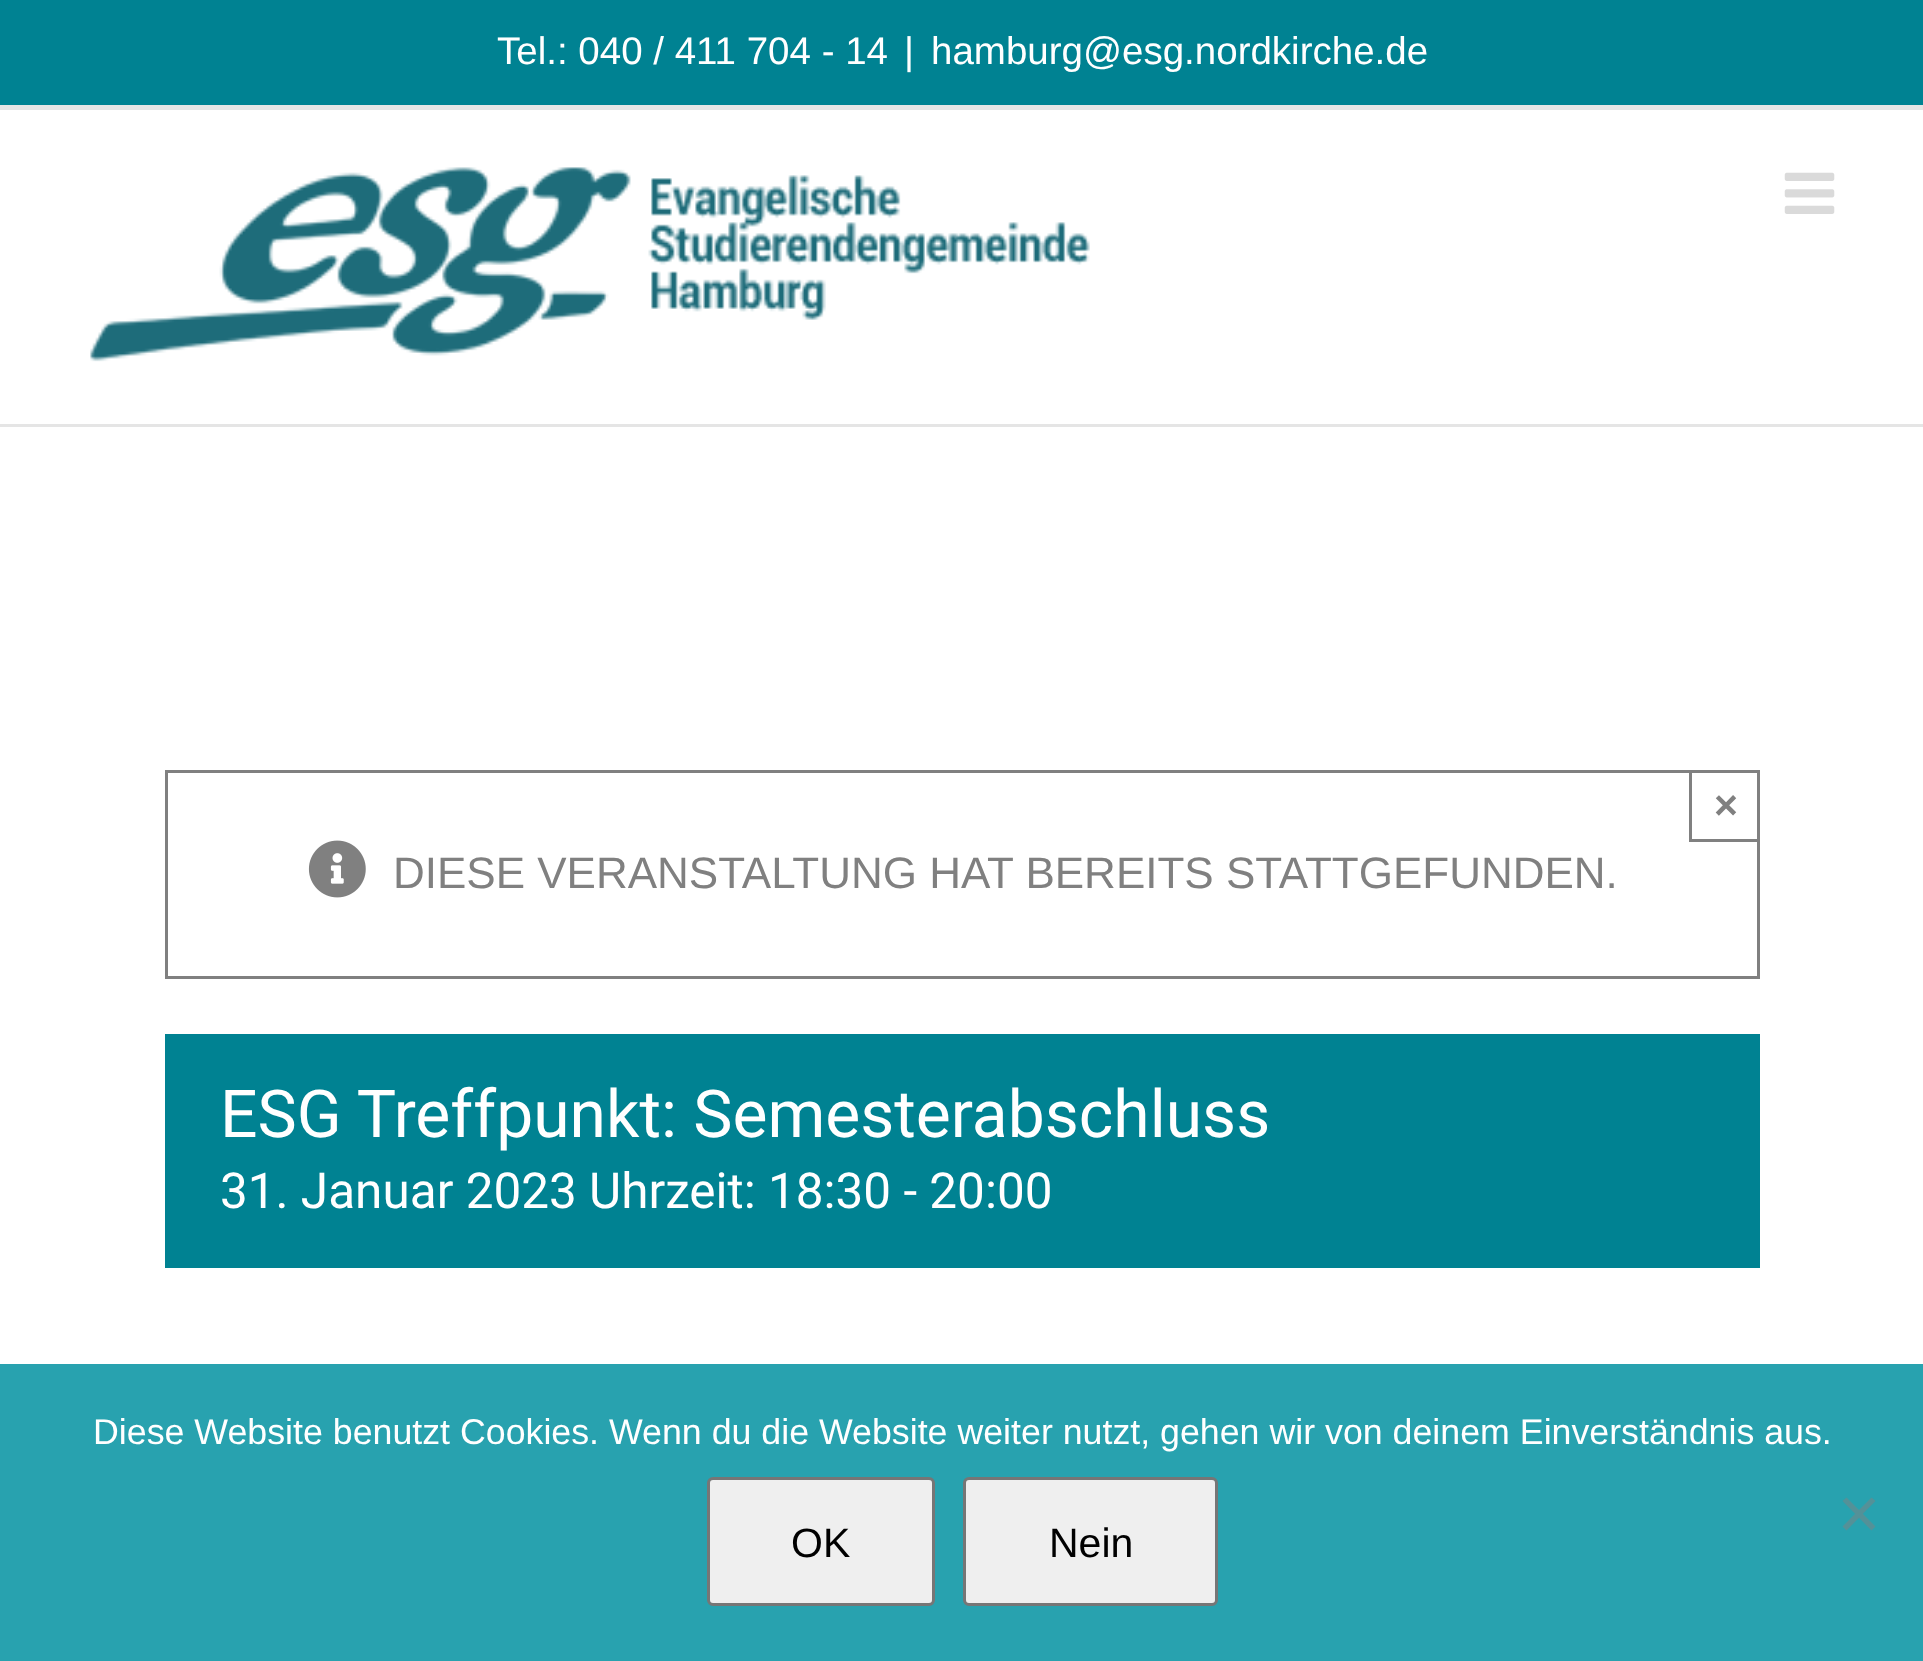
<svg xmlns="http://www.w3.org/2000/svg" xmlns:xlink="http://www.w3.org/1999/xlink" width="1923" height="1661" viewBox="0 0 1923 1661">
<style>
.cls-1{font:38.5px Liberation Sans;fill:#ffffff}
.cls-2{font:bold 41px Liberation Sans;fill:#808080}
.cls-3{font:44px Liberation Sans;fill:#808080}
.cls-4{font:66px Roboto;fill:#ffffff}
.cls-5{font:49.5px Roboto;fill:#ffffff}
.cls-6{font:35.75px Liberation Sans;fill:#ffffff}
.cls-7{font:41px Liberation Sans;fill:#000000}
</style>
<rect width="100%" height="100%" fill="#ffffff"/>
<rect fill="#008292" x="0" y="0" width="1923" height="105"/>
<rect fill="#e5e5e5" x="0" y="105" width="1923" height="5"/>
<rect fill="#e5e5e5" x="0" y="424" width="1923" height="3"/>
<image xlink:href="image0.png" x="90" y="167" width="1000" height="195"/>
<image xlink:href="image1.png" x="1784" y="172" width="51" height="42"/>
<rect fill="none" stroke="#808080" stroke-width="3" x="166.5" y="771.5" width="1592" height="206"/>
<rect fill="#808080" x="1689" y="839" width="71" height="3"/>
<rect fill="#808080" x="1689" y="770" width="3" height="72"/>
<image xlink:href="image2.png" x="308" y="840" width="58" height="58"/>
<rect fill="#008292" x="165" y="1034" width="1595" height="234"/>
<rect fill="#28a2af" x="0" y="1364" width="1923" height="297"/>
<path fill="#549198" d="M1871.5 1497.5L1875.5 1501L1846.5 1530.5L1842.5 1526.5Z"/>
<path fill="#549198" d="M1842.5 1501L1846.5 1497.5L1875.5 1526.5L1871.5 1530.5Z"/>
<rect fill="#efefef" stroke="#767676" stroke-width="3" x="708.5" y="1478.5" width="225" height="126" rx="4.5"/>
<rect fill="#efefef" stroke="#767676" stroke-width="3" x="964.5" y="1478.5" width="252" height="126" rx="4.5"/>
<text class="cls-1" x="497" y="64">Tel.: 040 / 411 704 - 14</text>
<text class="cls-1" x="904" y="64">|</text>
<text class="cls-1" x="931" y="64">hamburg@esg.nordkirche.de</text>
<text class="cls-2" x="1714" y="819">×</text>
<text class="cls-3" x="393" y="888">DIESE VERANSTALTUNG HAT BEREITS STATTGEFUNDEN.</text>
<text class="cls-4" x="220" y="1137">ESG Treffpunkt: Semesterabschluss</text>
<text class="cls-5" x="220" y="1208">31. Januar 2023 Uhrzeit: 18:30 - 20:00</text>
<text class="cls-6" x="93" y="1444">Diese Website benutzt Cookies. Wenn du die Website weiter nutzt, gehen wir von deinem Einverständnis aus.</text>
<text class="cls-7" x="791" y="1557">OK</text>
<text class="cls-7" x="1049" y="1557">Nein</text>
</svg>
